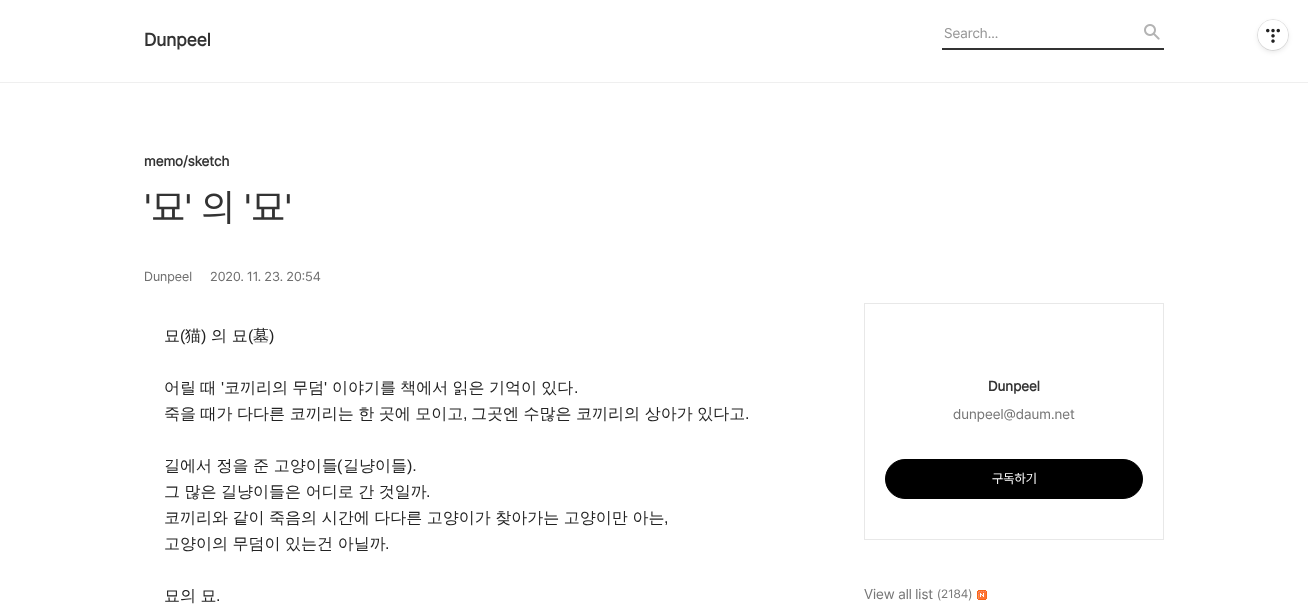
<svg xmlns="http://www.w3.org/2000/svg" xmlns:xlink="http://www.w3.org/1999/xlink" width="1308" height="616" viewBox="0 0 1308 616">
<style>
.cls-1{font:bold 18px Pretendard;fill:#333333}
.cls-2{font:14px Pretendard;fill:#969696}
.cls-3{font:bold 14px Pretendard;fill:#333333}
.cls-4{font:38px Pretendard;fill:#333333}
.cls-5{font:13px Pretendard;fill:#707070}
.cls-6{font:500 16px WenQuanYi Zen Hei;fill:#222222}
.cls-7{font:16px Liberation Sans;fill:#222222}
.cls-8{font:14px Pretendard;fill:#777777}
.cls-9{font:13px Pretendard;fill:#ffffff}
.cls-10{font:12px Pretendard;fill:#777777}
</style>
<rect width="100%" height="100%" fill="#ffffff"/>
<rect fill="#efefef" x="0" y="82" width="1308" height="1"/>
<image xlink:href="image0.png" x="1144" y="24" width="16" height="16"/>
<rect fill="#333333" x="942" y="48" width="222" height="2"/>
<rect fill="none" stroke="#e8e8e8" x="864.5" y="303.5" width="299" height="236"/>
<rect fill="#000000" stroke="#000000" x="885.5" y="459.5" width="257" height="39" rx="19.5"/>
<image xlink:href="image1.png" x="977" y="590" width="10" height="10"/>
<rect fill="#000000" fill-opacity="0.1" filter="blur(2.5px)" x="1258" y="22" width="30" height="30" rx="15"/>
<circle fill="none" stroke="#000000" stroke-opacity="0.1" cx="1273" cy="35" r="15.5"/>
<circle fill="#ffffff" cx="1273" cy="35" r="15"/>
<image xlink:href="image2.png" x="1266" y="28" width="14" height="15"/>
<text class="cls-1" x="144" y="46">Dunpeel</text>
<text class="cls-2" x="944" y="38">Search...</text>
<text class="cls-3" x="144" y="166">memo/sketch</text>
<text class="cls-4" x="144" y="221">'묘' 의 '묘'</text>
<text class="cls-5" x="144" y="281">Dunpeel</text>
<text class="cls-5" x="210" y="281">2020. 11. 23. 20:54</text>
<text class="cls-6" x="164" y="341">묘</text>
<text class="cls-7" x="180" y="341">(</text>
<text class="cls-6" x="185" y="341">猫</text>
<text class="cls-7" x="201" y="341">)</text>
<text class="cls-6" x="211" y="341">의 묘</text>
<text class="cls-7" x="248" y="341">(</text>
<text class="cls-6" x="253" y="341">墓</text>
<text class="cls-7" x="269" y="341">)</text>
<text class="cls-6" x="164" y="393" word-spacing="-0.5">어릴 때</text>
<text class="cls-7" x="221" y="393">'</text>
<text class="cls-6" x="224" y="393" word-spacing="-0.5">코끼리의 무덤</text>
<text class="cls-7" x="324" y="393">'</text>
<text class="cls-6" x="332" y="393" word-spacing="-0.5">이야기를 책에서 읽은 기억이 있다</text>
<text class="cls-7" x="574" y="393">.</text>
<text class="cls-6" x="164" y="419" word-spacing="-0.25">죽을 때가 다다른 코끼리는 한 곳에 모이고</text>
<text class="cls-7" x="463" y="419">,</text>
<text class="cls-6" x="471" y="419" word-spacing="-0.25">그곳엔 수많은 코끼리의 상아가 있다고</text>
<text class="cls-7" x="745" y="419">.</text>
<text class="cls-6" x="164" y="471" word-spacing="-0.25">길에서 정을 준 고양이들</text>
<text class="cls-7" x="337" y="471">(</text>
<text class="cls-6" x="343" y="471">길냥이들</text>
<text class="cls-7" x="407" y="471">).</text>
<text class="cls-6" x="164" y="497" word-spacing="-0.25">그 많은 길냥이들은 어디로 간 것일까</text>
<text class="cls-7" x="426" y="497">.</text>
<text class="cls-6" x="164" y="523" word-spacing="-0.25">코끼리와 같이 죽음의 시간에 다다른 고양이가 찾아가는 고양이만 아는</text>
<text class="cls-7" x="664" y="523">,</text>
<text class="cls-6" x="164" y="549" word-spacing="-0.25">고양이의 무덤이 있는건 아닐까</text>
<text class="cls-7" x="385" y="549">.</text>
<text class="cls-6" x="164" y="601" word-spacing="-0.25">묘의 묘</text>
<text class="cls-7" x="216" y="601">.</text>
<text class="cls-3" x="988" y="391">Dunpeel</text>
<text class="cls-8" x="953" y="419">dunpeel@daum.net</text>
<text class="cls-9" x="992" y="483">구독하기</text>
<text class="cls-8" x="864" y="599">View all list</text>
<text class="cls-10" x="937" y="598">(2184)</text>
</svg>
